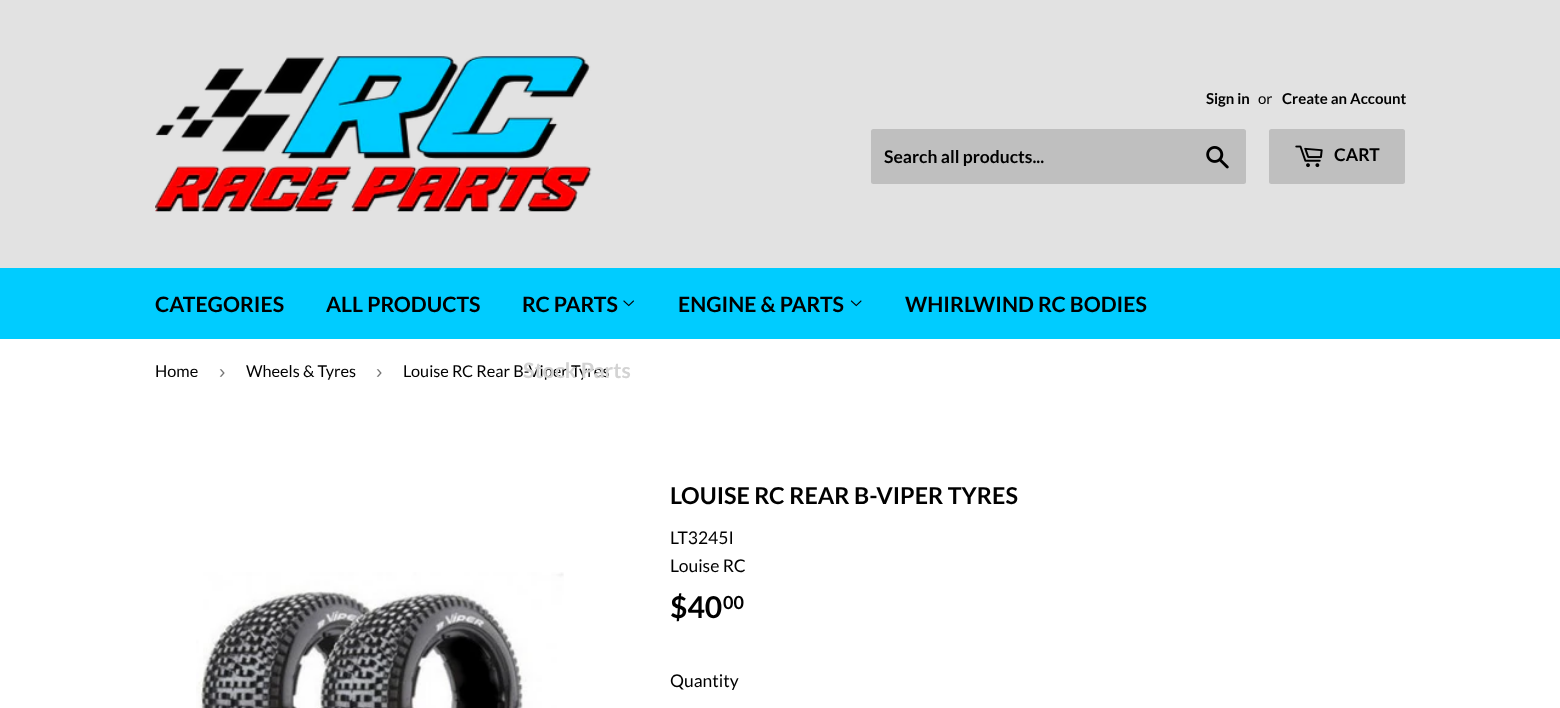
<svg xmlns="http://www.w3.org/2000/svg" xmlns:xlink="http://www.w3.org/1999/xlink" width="1560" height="708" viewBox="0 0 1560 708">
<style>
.cls-1{font:bold 15px Lato;fill:#000000}
.cls-2{font:15px Lato;fill:#000000}
.cls-3{font:bold 17.5px Lato;fill:#000000}
.cls-4{font:bold 21.25px Lato;fill:#000000}
.cls-5{font:16.25px Lato;fill:#000000}
.cls-6{font:19px Liberation Sans;fill:#767676}
.cls-7{font:bold 21.25px Lato;fill:#d3d3d3}
.cls-8{font:bold 23.3px Lato;fill:#000000}
.cls-9{font:17.5px Lato;fill:#000000}
.cls-10{font:bold 30px Lato;fill:#000000}
.cls-11{font:bold 18px Lato;fill:#000000}
</style>
<rect width="100%" height="100%" fill="#ffffff"/>
<rect fill="#e2e2e2" x="0" y="0" width="1560" height="268"/>
<image xlink:href="image0.png" x="155" y="56" width="437" height="156"/>
<rect fill="#bfbfbf" x="871" y="129" width="375" height="55" rx="2.5"/>
<image xlink:href="image1.png" x="1206" y="146" width="23" height="23"/>
<rect fill="#bfbfbf" x="1269" y="129" width="136" height="55" rx="2.5"/>
<image xlink:href="image2.png" x="1295" y="145" width="28" height="23"/>
<rect fill="#00ccff" x="0" y="268" width="1560" height="71"/>
<image xlink:href="image3.png" x="623" y="300" width="11" height="7"/>
<image xlink:href="image4.png" x="850" y="300" width="12" height="7"/>
<image xlink:href="image5.png" x="196" y="572" width="368" height="136"/>
<text class="cls-1" x="1206" y="104">Sign in</text>
<text class="cls-2" x="1258" y="104">or</text>
<text class="cls-1" x="1282" y="104">Create an Account</text>
<text class="cls-3" x="884" y="163">Search all products...</text>
<text class="cls-3" x="1334" y="161">CART</text>
<text class="cls-4" x="155" y="312">CATEGORIES</text>
<text class="cls-4" x="326" y="312">ALL PRODUCTS</text>
<text class="cls-4" x="522" y="312">RC PARTS</text>
<text class="cls-4" x="678" y="312">ENGINE &amp; PARTS</text>
<text class="cls-4" x="905" y="312">WHIRLWIND RC BODIES</text>
<text class="cls-5" x="155" y="377">Home</text>
<text class="cls-6" x="219" y="378">›</text>
<text class="cls-5" x="246" y="377">Wheels &amp; Tyres</text>
<text class="cls-6" x="376" y="378">›</text>
<text class="cls-5" x="403" y="377">Louise RC Rear B-Viper Tyres</text>
<text class="cls-7" x="523" y="378">Stock Parts</text>
<text class="cls-8" x="670" y="504">LOUISE RC REAR B-VIPER TYRES</text>
<text class="cls-9"><tspan x="670" y="544">LT3245I</tspan><tspan x="670" y="572">Louise RC</tspan></text>
<text class="cls-10" x="670" y="618">$40</text>
<text class="cls-11" x="723" y="609">00</text>
<text class="cls-9" x="670" y="687">Quantity</text>
</svg>
